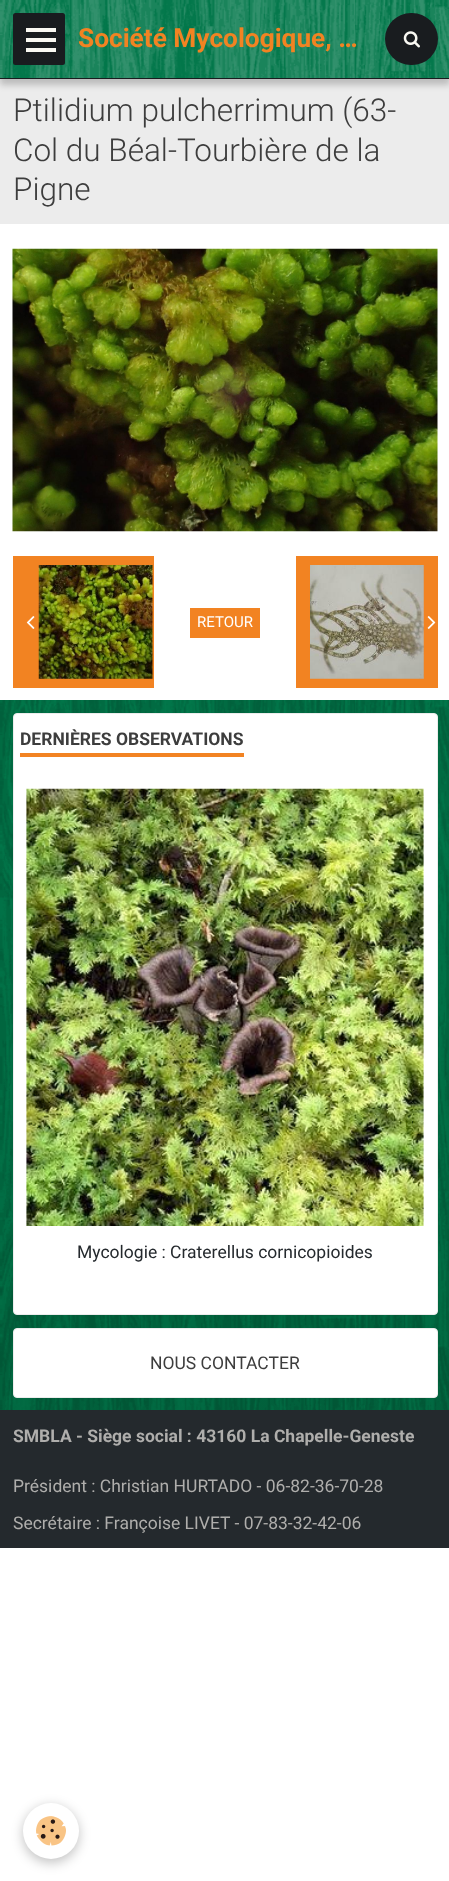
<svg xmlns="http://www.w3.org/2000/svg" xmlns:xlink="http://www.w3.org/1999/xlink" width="449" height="1881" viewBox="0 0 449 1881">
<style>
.cls-1{font:bold 26.25px Roboto;fill:#f28322}
.cls-2{font:300 31.5px Roboto;fill:#3d3d3d}
.cls-3{font:15px Roboto;fill:#ffffff}
.cls-4{font:bold 17.5px Roboto;fill:#3d3d3d}
.cls-5{font:17.5px Roboto;fill:#24292d}
.cls-6{font:17.5px Roboto;fill:#3d3d3d}
.cls-7{font:bold 17.5px Roboto;fill:#afaeac}
.cls-8{font:17.5px Roboto;fill:#afaeac}
</style>
<defs>
<linearGradient id="g1" gradientUnits="userSpaceOnUse" x1="225" y1="1410" x2="225" y2="700"><stop offset="0" stop-color="#000000" stop-opacity="0.1"/><stop offset="1" stop-color="#000000" stop-opacity="0"/></linearGradient>
</defs>
<rect width="100%" height="100%" fill="#ffffff"/>
<rect fill="#ececec" x="0" y="79" width="449" height="145"/>
<rect fill="#000000" fill-opacity="0.2" filter="blur(3px)" x="0" y="6" width="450" height="79"/>
<rect fill="#02774a" x="0" y="0" width="449" height="78"/>
<image xlink:href="image0.png" x="0" y="0" width="449" height="78"/>
<rect fill="#191c1f" x="0" y="78" width="449" height="1"/>
<rect fill="#191c1f" x="13" y="13" width="52" height="52" rx="2.5"/>
<rect fill="#faf9f3" x="26" y="38" width="30" height="4"/>
<rect fill="#faf9f3" x="26" y="28" width="30" height="4"/>
<rect fill="#faf9f3" x="26" y="48" width="30" height="4"/>
<rect fill="#191c1f" x="385" y="13" width="53" height="52" rx="26"/>
<image xlink:href="image1.png" x="403" y="31" width="17" height="17"/>
<image xlink:href="image2.png" x="12" y="248" width="426" height="284"/>
<rect fill="#f28322" x="13" y="556" width="141" height="132"/>
<image xlink:href="image3.png" x="26" y="616" width="9" height="13"/>
<image xlink:href="image4.png" x="38" y="565" width="115" height="114"/>
<rect fill="#f28322" x="190" y="608" width="70" height="30"/>
<rect fill="#f28322" x="296" y="556" width="142" height="132"/>
<image xlink:href="image5.png" x="310" y="565" width="114" height="114"/>
<image xlink:href="image6.png" x="427" y="616" width="9" height="13"/>
<rect fill="#02774a" x="0" y="700" width="449" height="710"/>
<image xlink:href="image7.png" x="0" y="700" width="449" height="710"/>
<rect fill="url(#g1)" x="0" y="853" width="449" height="557"/>
<rect fill="#ffffff" stroke="#ececec" x="13.5" y="713.5" width="424" height="601" rx="3.5"/>
<rect fill="#f28322" x="20" y="753" width="224" height="4"/>
<image xlink:href="image8.png" x="26" y="788" width="398" height="438"/>
<rect fill="#ffffff" stroke="#ececec" x="13.5" y="1328.5" width="424" height="69" rx="3.5"/>
<rect fill="#24292d" x="0" y="1410" width="449" height="138"/>
<rect fill="#000000" fill-opacity="0.24" filter="blur(6px)" x="23" y="1806" width="56" height="57" rx="28"/>
<circle fill="#ffffff" cx="51" cy="1831" r="28"/>
<image xlink:href="image9.png" x="36" y="1816" width="30" height="30"/>
<text class="cls-1" x="78" y="47">Société Mycologique, …</text>
<text class="cls-2"><tspan x="13" y="121">Ptilidium pulcherrimum (63-</tspan><tspan x="13" y="161">Col du Béal-Tourbière de la</tspan><tspan x="13" y="200">Pigne</tspan></text>
<text class="cls-3" x="197" y="627">RETOUR</text>
<text class="cls-4" x="20" y="745">DERNIÈRES OBSERVATIONS</text>
<text class="cls-5" x="77" y="1258">Mycologie : Craterellus cornicopioides</text>
<text class="cls-6" x="150" y="1369">NOUS CONTACTER</text>
<text class="cls-7" x="13" y="1442">SMBLA - Siège social : 43160 La Chapelle-Geneste</text>
<text class="cls-8" x="13" y="1492">Président : Christian HURTADO - 06-82-36-70-28</text>
<text class="cls-8" x="13" y="1529">Secrétaire : Françoise LIVET - 07-83-32-42-06</text>
</svg>
